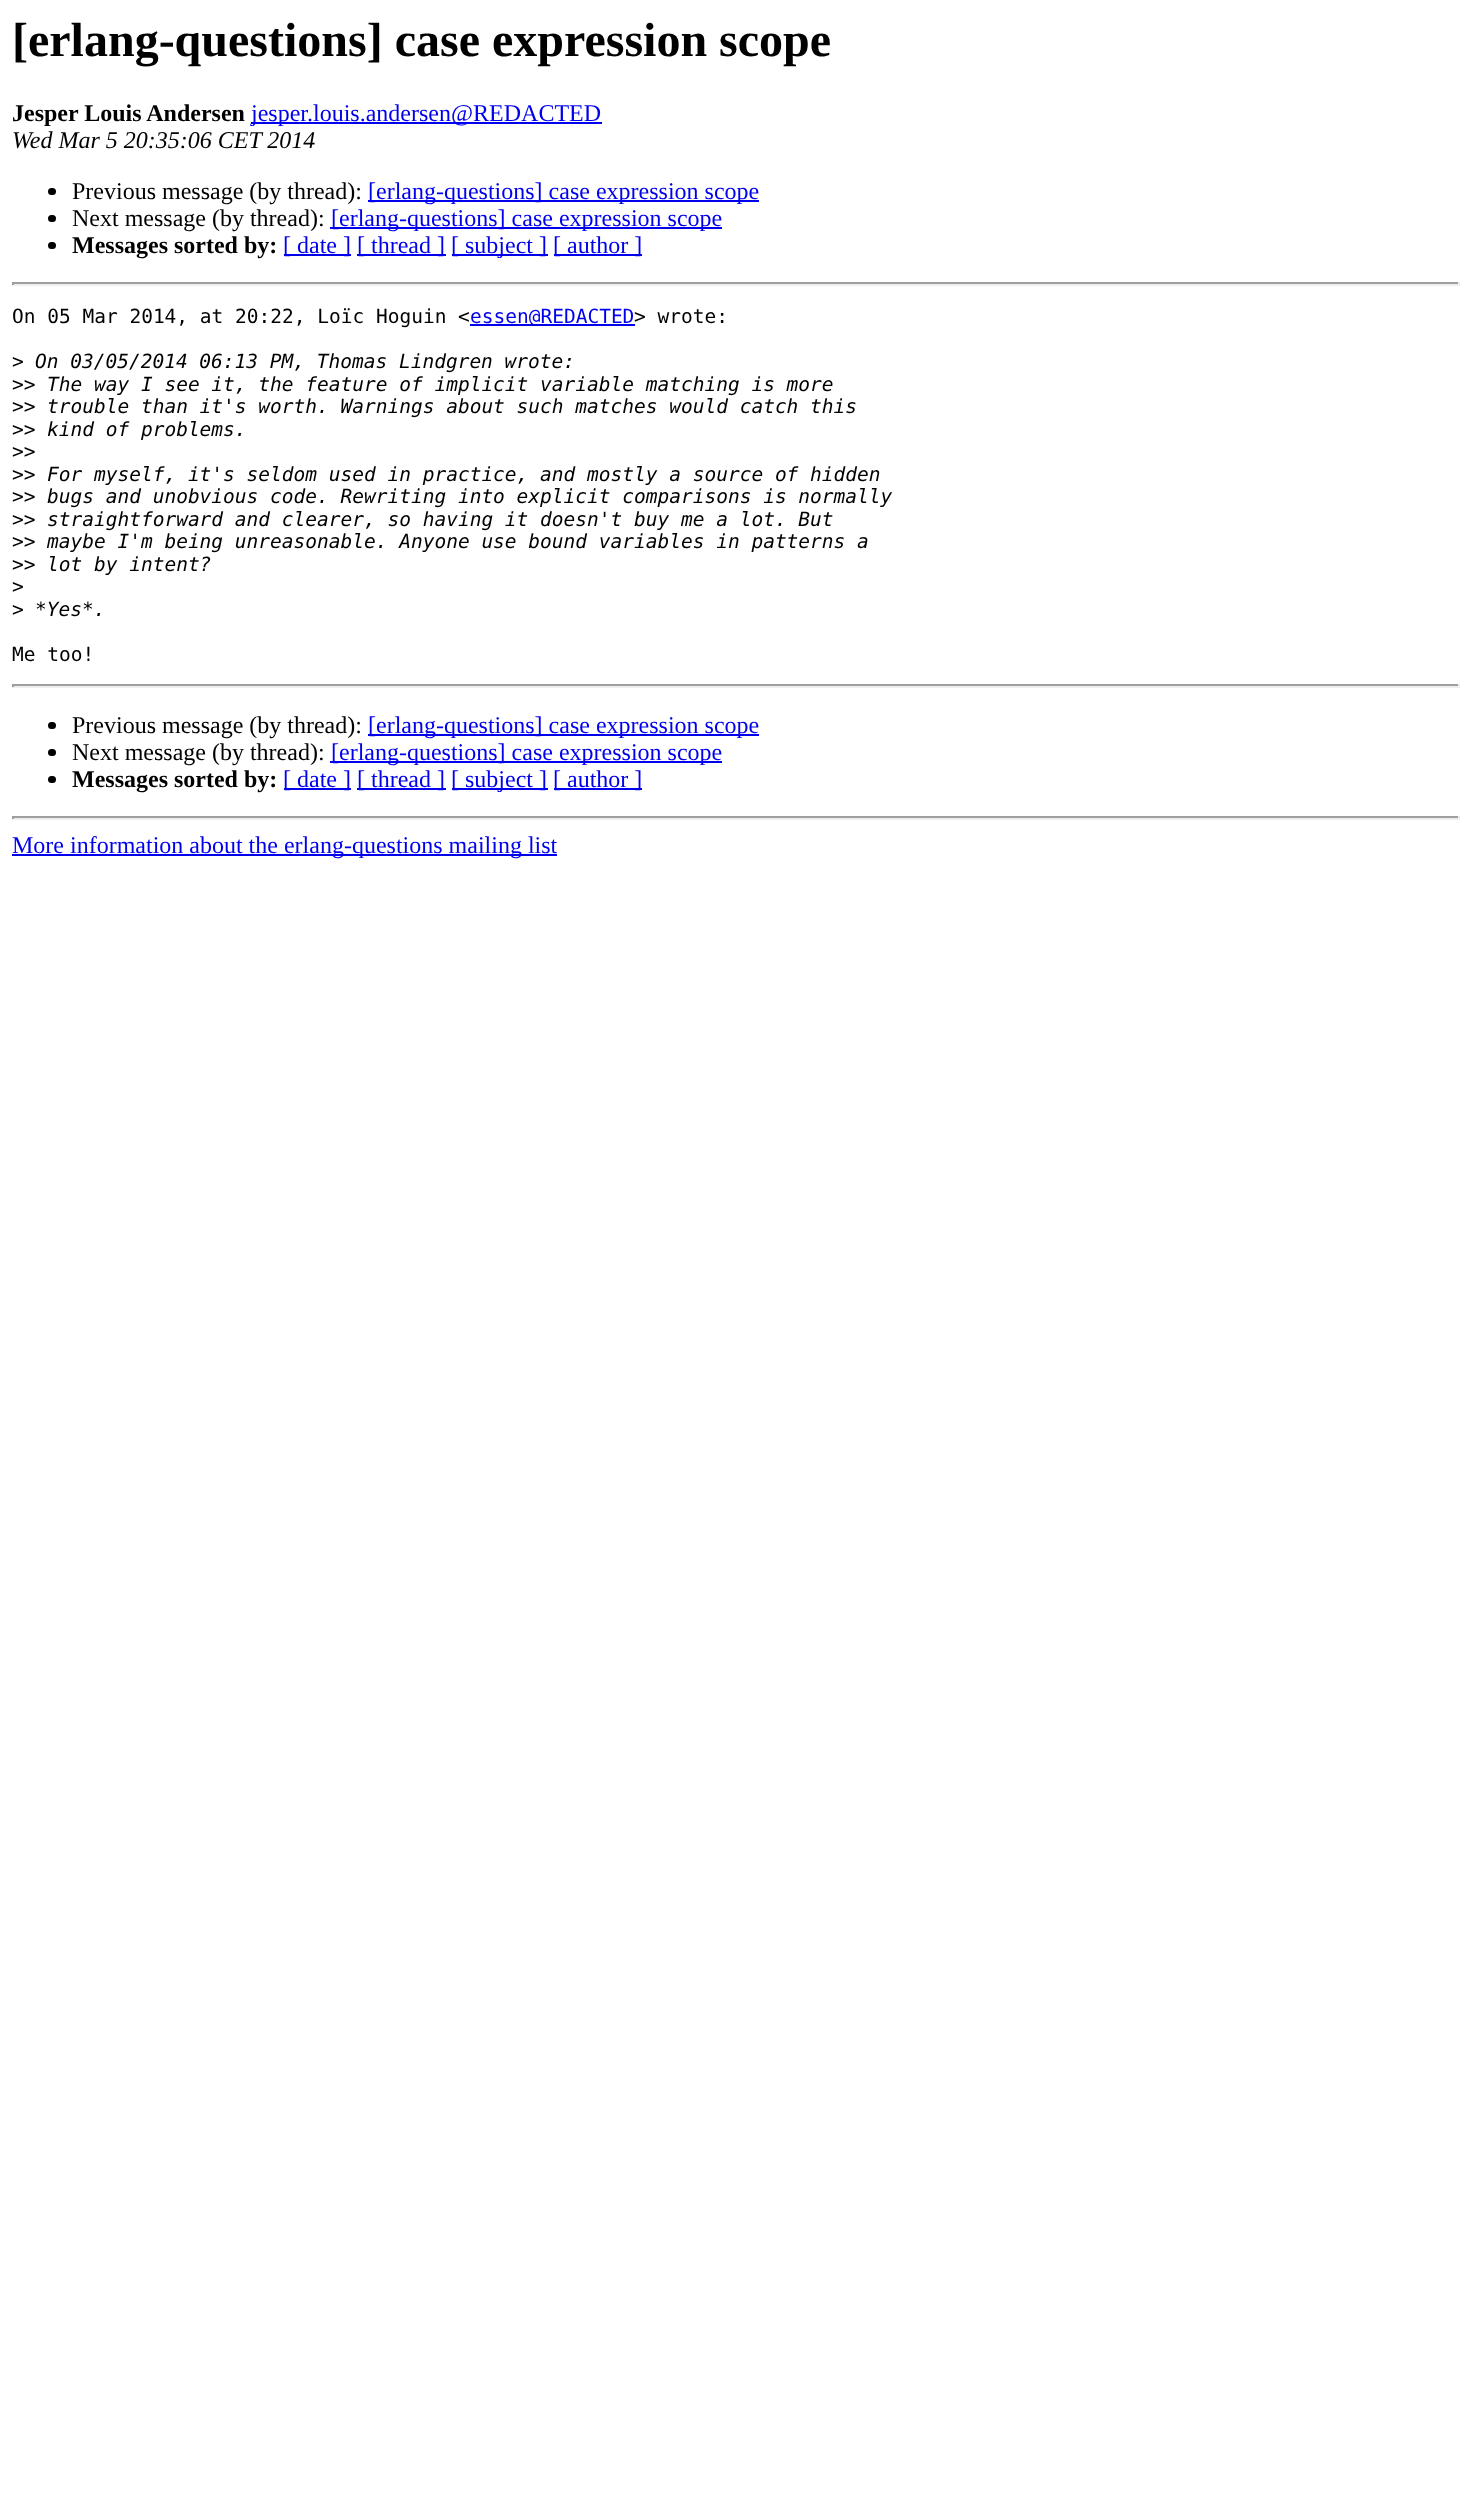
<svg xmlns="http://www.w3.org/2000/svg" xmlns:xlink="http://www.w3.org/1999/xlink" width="1471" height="2498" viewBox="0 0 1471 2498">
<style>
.cls-1{font:bold 48px Liberation Serif;fill:#000000}
.cls-2{font:bold 24px Liberation Serif;fill:#000000}
.cls-3{font:24px Liberation Serif;fill:#0000ee}
.cls-4{font:italic 24px Liberation Serif;fill:#000000}
.cls-5{font:24px Liberation Serif;fill:#000000}
.cls-6{font:19.5px DejaVu Sans Mono;fill:#000000}
.cls-7{font:19.5px DejaVu Sans Mono;fill:#0000ee}
.cls-8{font:italic 19.5px DejaVu Sans Mono;fill:#000000}
</style>
<rect width="100%" height="100%" fill="#ffffff"/>
<rect fill="#0000ee" x="251" y="122" width="351" height="2"/>
<rect fill="#000000" x="48" y="188" width="8" height="7" rx="3.5"/>
<rect fill="#0000ee" x="368" y="200" width="391" height="2"/>
<rect fill="#000000" x="48" y="215" width="8" height="7" rx="3.5"/>
<rect fill="#0000ee" x="330" y="227" width="392" height="2"/>
<rect fill="#000000" x="48" y="242" width="8" height="7" rx="3.5"/>
<rect fill="#0000ee" x="284" y="254" width="67" height="2"/>
<rect fill="#0000ee" x="357" y="254" width="89" height="2"/>
<rect fill="#0000ee" x="452" y="254" width="96" height="2"/>
<rect fill="#0000ee" x="554" y="254" width="88" height="2"/>
<rect fill="#9f9f9f" x="12" y="282" width="1448" height="2"/>
<rect fill="#eeeeee" x="1458" y="282" width="2" height="3"/>
<rect fill="#eeeeee" x="12" y="284" width="1448" height="2"/>
<rect fill="#9f9f9f" x="12" y="282" width="2" height="3"/>
<rect fill="#0000ee" x="470" y="324" width="165" height="2"/>
<rect fill="#9f9f9f" x="12" y="684" width="1448" height="2"/>
<rect fill="#eeeeee" x="1458" y="684" width="2" height="3"/>
<rect fill="#eeeeee" x="12" y="686" width="1448" height="2"/>
<rect fill="#9f9f9f" x="12" y="684" width="2" height="3"/>
<rect fill="#000000" x="48" y="722" width="8" height="7" rx="3.5"/>
<rect fill="#0000ee" x="368" y="734" width="391" height="2"/>
<rect fill="#000000" x="48" y="749" width="8" height="7" rx="3.5"/>
<rect fill="#0000ee" x="330" y="761" width="392" height="2"/>
<rect fill="#000000" x="48" y="776" width="8" height="7" rx="3.5"/>
<rect fill="#0000ee" x="284" y="788" width="67" height="2"/>
<rect fill="#0000ee" x="357" y="788" width="89" height="2"/>
<rect fill="#0000ee" x="452" y="788" width="96" height="2"/>
<rect fill="#0000ee" x="554" y="788" width="88" height="2"/>
<rect fill="#9f9f9f" x="12" y="816" width="1448" height="2"/>
<rect fill="#eeeeee" x="1458" y="816" width="2" height="3"/>
<rect fill="#eeeeee" x="12" y="818" width="1448" height="2"/>
<rect fill="#9f9f9f" x="12" y="816" width="2" height="3"/>
<rect fill="#0000ee" x="12" y="854" width="545" height="2"/>
<text class="cls-1" x="12" y="56">[erlang-questions] case expression scope</text>
<text class="cls-2" x="12" y="121">Jesper Louis Andersen</text>
<text class="cls-3" x="251" y="121">jesper.louis.andersen@REDACTED</text>
<text class="cls-4" x="12" y="148">Wed Mar 5 20:35:06 CET 2014</text>
<text class="cls-5" x="72" y="199">Previous message (by thread):</text>
<text class="cls-3" x="368" y="199">[erlang-questions] case expression scope</text>
<text class="cls-5" x="72" y="226">Next message (by thread):</text>
<text class="cls-3" x="331" y="226">[erlang-questions] case expression scope</text>
<text class="cls-2" x="72" y="253">Messages sorted by:</text>
<text class="cls-3" x="283" y="253">[ date ]</text>
<text class="cls-3" x="357" y="253">[ thread ]</text>
<text class="cls-3" x="451" y="253">[ subject ]</text>
<text class="cls-3" x="553" y="253">[ author ]</text>
<text class="cls-6" x="12" y="323">On 05 Mar 2014, at 20:22, Loïc Hoguin &lt;</text>
<text class="cls-7" x="470" y="323">essen@REDACTED</text>
<text class="cls-6" x="634" y="323">&gt; wrote:</text>
<text class="cls-6" x="12" y="368">&gt;</text>
<text class="cls-8" x="35" y="368">On 03/05/2014 06:13 PM, Thomas Lindgren wrote:</text>
<text class="cls-6" x="12" y="391">&gt;&gt;</text>
<text class="cls-8" x="47" y="391">The way I see it, the feature of implicit variable matching is more</text>
<text class="cls-6" x="12" y="413">&gt;&gt;</text>
<text class="cls-8" x="47" y="413">trouble than it's worth. Warnings about such matches would catch this</text>
<text class="cls-6" x="12" y="436">&gt;&gt;</text>
<text class="cls-8" x="47" y="436">kind of problems.</text>
<text class="cls-6"><tspan x="12" y="458">&gt;&gt;</tspan><tspan x="12" y="481">&gt;&gt;</tspan></text>
<text class="cls-8" x="47" y="481">For myself, it's seldom used in practice, and mostly a source of hidden</text>
<text class="cls-6" x="12" y="503">&gt;&gt;</text>
<text class="cls-8" x="47" y="503">bugs and unobvious code. Rewriting into explicit comparisons is normally</text>
<text class="cls-6" x="12" y="526">&gt;&gt;</text>
<text class="cls-8" x="47" y="526">straightforward and clearer, so having it doesn't buy me a lot. But</text>
<text class="cls-6" x="12" y="548">&gt;&gt;</text>
<text class="cls-8" x="47" y="548">maybe I'm being unreasonable. Anyone use bound variables in patterns a</text>
<text class="cls-6" x="12" y="571">&gt;&gt;</text>
<text class="cls-8" x="47" y="571">lot by intent?</text>
<text class="cls-6"><tspan x="12" y="593">&gt;</tspan><tspan x="12" y="616">&gt;</tspan></text>
<text class="cls-8" x="35" y="616">*Yes*.</text>
<text class="cls-6" x="12" y="661">Me too!</text>
<text class="cls-5" x="72" y="733">Previous message (by thread):</text>
<text class="cls-3" x="368" y="733">[erlang-questions] case expression scope</text>
<text class="cls-5" x="72" y="760">Next message (by thread):</text>
<text class="cls-3" x="331" y="760">[erlang-questions] case expression scope</text>
<text class="cls-2" x="72" y="787">Messages sorted by:</text>
<text class="cls-3" x="283" y="787">[ date ]</text>
<text class="cls-3" x="357" y="787">[ thread ]</text>
<text class="cls-3" x="451" y="787">[ subject ]</text>
<text class="cls-3" x="553" y="787">[ author ]</text>
<text class="cls-3" x="12" y="853">More information about the erlang-questions mailing list</text>
</svg>
